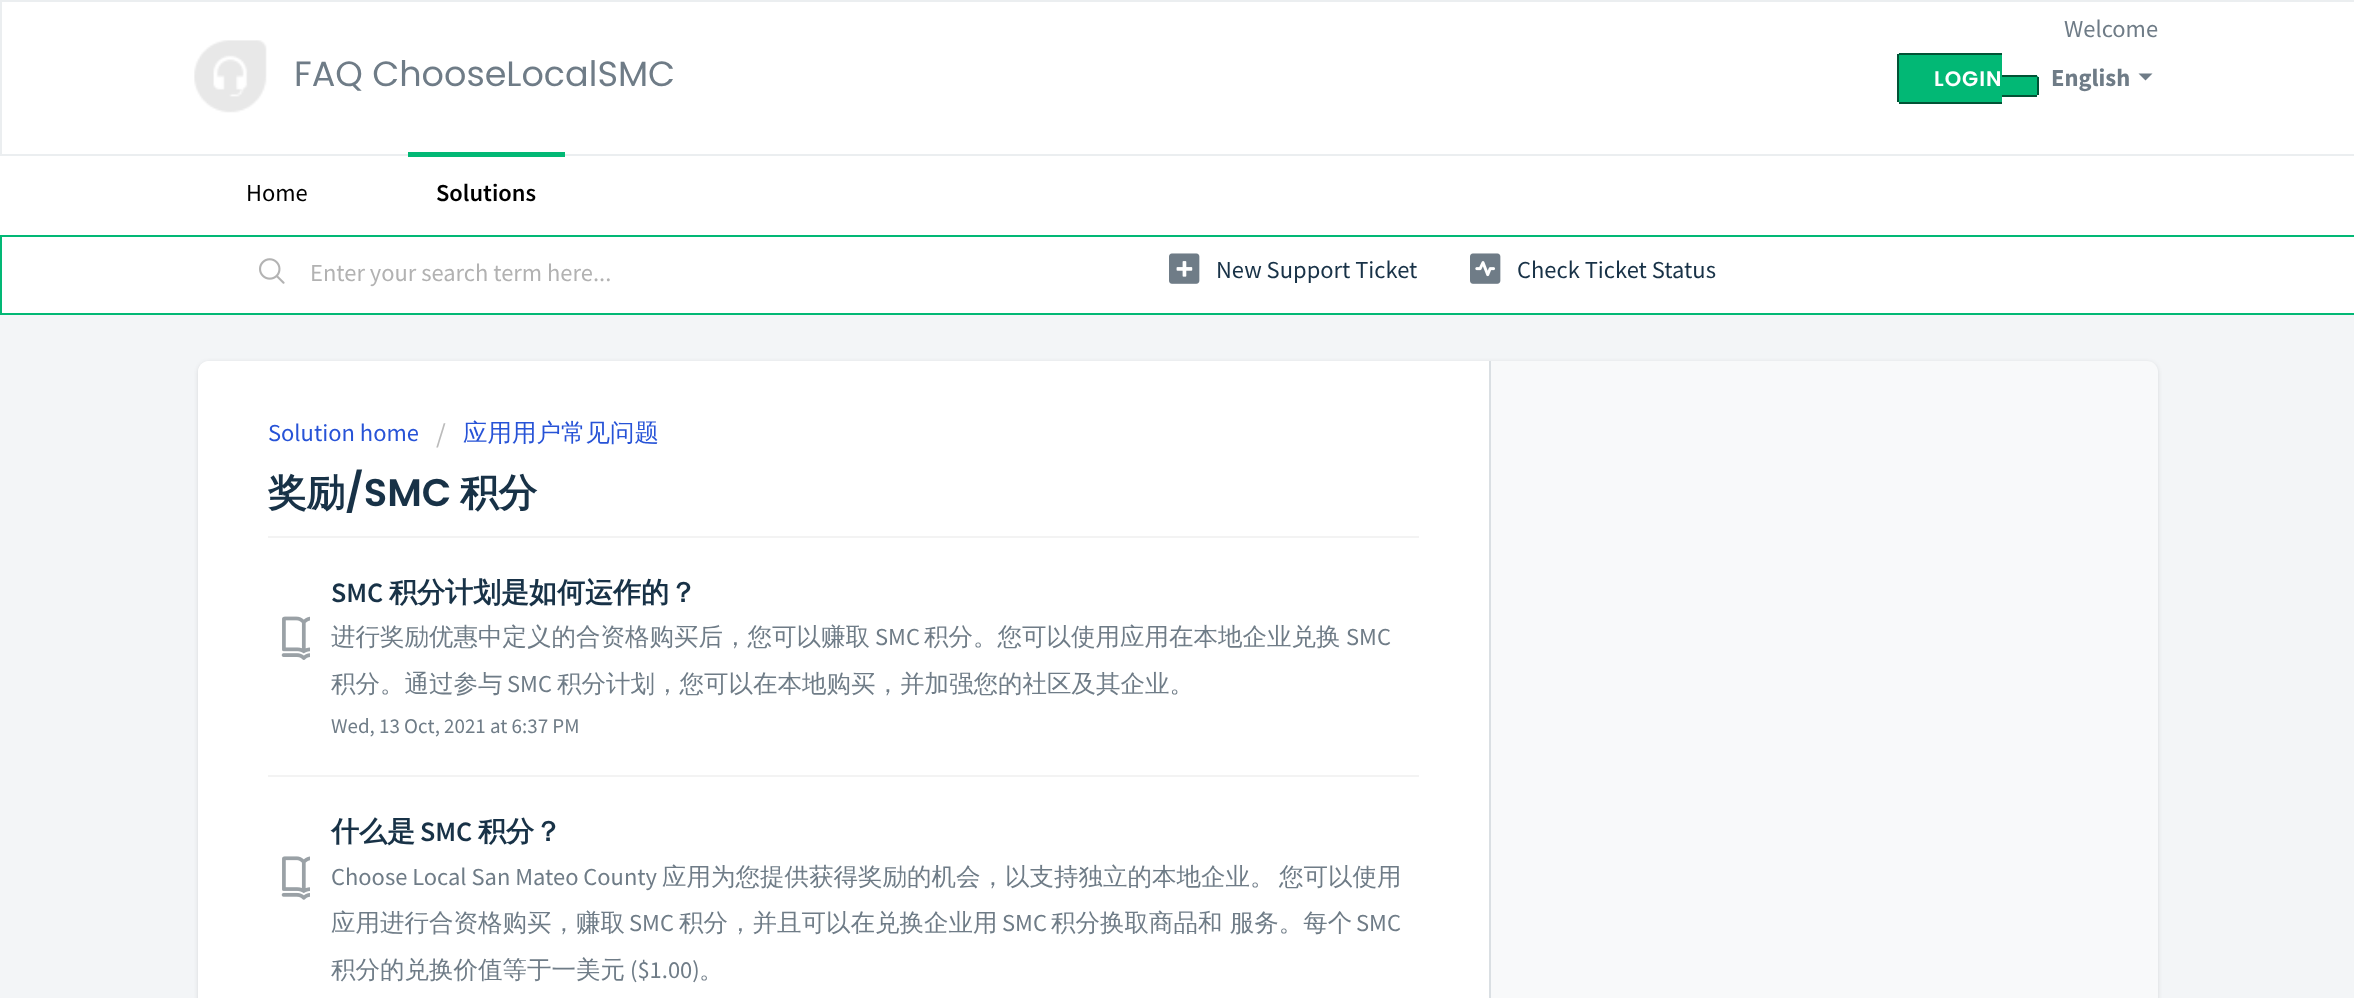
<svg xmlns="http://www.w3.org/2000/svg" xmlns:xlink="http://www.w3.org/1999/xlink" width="2354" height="998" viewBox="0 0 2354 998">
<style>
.cls-1{font:35px Poppins;fill:#6f7c87}
.cls-2{font:24.5px Source Sans Pro;fill:#6f7c87}
.cls-3{font:600 21px Poppins;letter-spacing:1px;fill:#ffffff}
.cls-4{font:bold 24.5px Source Sans Pro;fill:#6f7c87}
.cls-5{font:24.5px Source Sans Pro;fill:#000000}
.cls-6{font:600 24.5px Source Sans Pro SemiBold;fill:#000000}
.cls-7{font:24.5px Source Sans Pro;fill:#b2b2b2}
.cls-8{font:24.5px Source Sans Pro;fill:#183247}
.cls-9{font:24.5px Source Sans Pro;fill:#2753d7}
.cls-10{font:28px Source Sans Pro;fill:#bbbbbb}
.cls-11{font:500 24.5px WenQuanYi Zen Hei;fill:#2753d7}
.cls-12{font:bold 38.5px WenQuanYi Zen Hei;fill:#183247}
.cls-13{font:600 38.5px Poppins;fill:#183247}
.cls-14{font:600 28px Source Sans Pro SemiBold;fill:#183247}
.cls-15{font:bold 28px WenQuanYi Zen Hei;fill:#183247}
.cls-16{font:500 24.5px WenQuanYi Zen Hei;fill:#6f7c87}
.cls-17{font:21px Source Sans Pro;fill:#6f7c87}
</style>
<rect width="100%" height="100%" fill="#f3f5f7"/>
<rect fill="#ffffff" stroke="#ebeef0" stroke-width="2" x="1" y="1" width="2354" height="154"/>
<image xlink:href="image0.png" x="194" y="40" width="73" height="73"/>
<path fill="#02b875" d="M1901 53H2002V103H1901C1899 103 1897 101 1897 99V57C1897 55 1899 53 1901 53Z"/>
<rect fill="#015335" x="1899" y="53" width="103" height="2"/>
<rect fill="#015335" x="1899" y="102" width="103" height="2"/>
<rect fill="#015335" x="1897" y="54" width="2" height="48"/>
<path fill="#02b875" d="M2002 75H2035C2037 75 2039 77 2039 79V92C2039 94 2037 96 2035 96H2002Z"/>
<rect fill="#015335" x="2002" y="75" width="35" height="2"/>
<rect fill="#015335" x="2037" y="77" width="2" height="18"/>
<rect fill="#015335" x="2002" y="95" width="35" height="2"/>
<path fill="#6f7c87" d="M2138.5 73.5H2152.5L2145.5 80.5Z"/>
<rect fill="#ffffff" x="0" y="156" width="2354" height="79"/>
<rect fill="#02b875" x="408" y="152" width="157" height="5"/>
<rect fill="#ffffff" stroke="#02b875" stroke-width="2" x="1" y="236" width="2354" height="78"/>
<image xlink:href="image1.png" x="259" y="258" width="26" height="26"/>
<image xlink:href="image2.png" x="1169" y="253" width="31" height="31"/>
<image xlink:href="image3.png" x="1470" y="253" width="31" height="31"/>
<rect fill="#3f3f44" fill-opacity="0.15" filter="blur(2px)" x="198" y="362" width="1960" height="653" rx="11"/>
<rect fill="#f8f9fa" x="198" y="361" width="1960" height="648" rx="11"/>
<path fill="#ffffff" d="M209 361H1491V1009H209C203 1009 198 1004 198 998V372C198 366 203 361 209 361Z"/>
<rect fill="#dadfe3" x="1489" y="361" width="2" height="637"/>
<rect fill="#f3f3f3" x="268" y="536" width="1151" height="2"/>
<image xlink:href="image4.png" x="281" y="616" width="29" height="44"/>
<rect fill="#f3f3f3" x="268" y="775" width="1151" height="2"/>
<image xlink:href="image5.png" x="281" y="856" width="29" height="44"/>
<text class="cls-1" x="294" y="86">FAQ ChooseLocalSMC</text>
<text class="cls-2" x="2064" y="37">Welcome</text>
<text class="cls-3" x="1934" y="86">LOGIN</text>
<text class="cls-4" x="2051" y="86">English</text>
<text class="cls-5" x="246" y="201">Home</text>
<text class="cls-6" x="436" y="201">Solutions</text>
<text class="cls-7" x="310" y="281">Enter your search term here...</text>
<text class="cls-8" x="1216" y="278">New Support Ticket</text>
<text class="cls-8" x="1517" y="278">Check Ticket Status</text>
<text class="cls-9" x="268" y="441">Solution home</text>
<text class="cls-10" x="436" y="443">/</text>
<text class="cls-11" x="463" y="441">应用用户常见问题</text>
<text class="cls-12" x="268" y="506">奖励</text>
<text class="cls-13" x="345" y="506">/SMC</text>
<text class="cls-12" x="460" y="506">积分</text>
<text class="cls-14" x="331" y="602">SMC</text>
<text class="cls-15" x="389" y="602">积分计划是如何运作的？</text>
<text class="cls-16" x="331" y="645">进行奖励优惠中定义的合资格购买后，您可以赚取</text>
<text class="cls-2" x="875" y="645">SMC</text>
<text class="cls-16" x="924" y="645">积分。您可以使用应用在本地企业兑换</text>
<text class="cls-2" x="1346" y="645">SMC</text>
<text class="cls-16" x="331" y="692">积分。通过参与</text>
<text class="cls-2" x="507" y="692">SMC</text>
<text class="cls-16" x="557" y="692">积分计划，您可以在本地购买，并加强您的社区及其企业。</text>
<text class="cls-17" x="331" y="733">Wed, 13 Oct, 2021 at 6:37 PM</text>
<text class="cls-15" x="331" y="841">什么是</text>
<text class="cls-14" x="420" y="841">SMC</text>
<text class="cls-15" x="478" y="841">积分？</text>
<text class="cls-2" x="331" y="885">Choose Local San Mateo County</text>
<text class="cls-16" x="662" y="885">应用为您提供获得奖励的机会，以支持独立的本地企业。</text>
<text class="cls-16" x="1279" y="885">您可以使用</text>
<text class="cls-16" x="331" y="931">应用进行合资格购买，赚取</text>
<text class="cls-2" x="629" y="931">SMC</text>
<text class="cls-16" x="679" y="931">积分，并且可以在兑换企业用</text>
<text class="cls-2" x="1002" y="931">SMC</text>
<text class="cls-16" x="1051" y="931">积分换取商品和 服务。每个</text>
<text class="cls-2" x="1356" y="931">SMC</text>
<text class="cls-16" x="331" y="978">积分的兑换价值等于一美元</text>
<text class="cls-2" x="630" y="978">($1.00)</text>
<text class="cls-16" x="699" y="978">。</text>
</svg>
